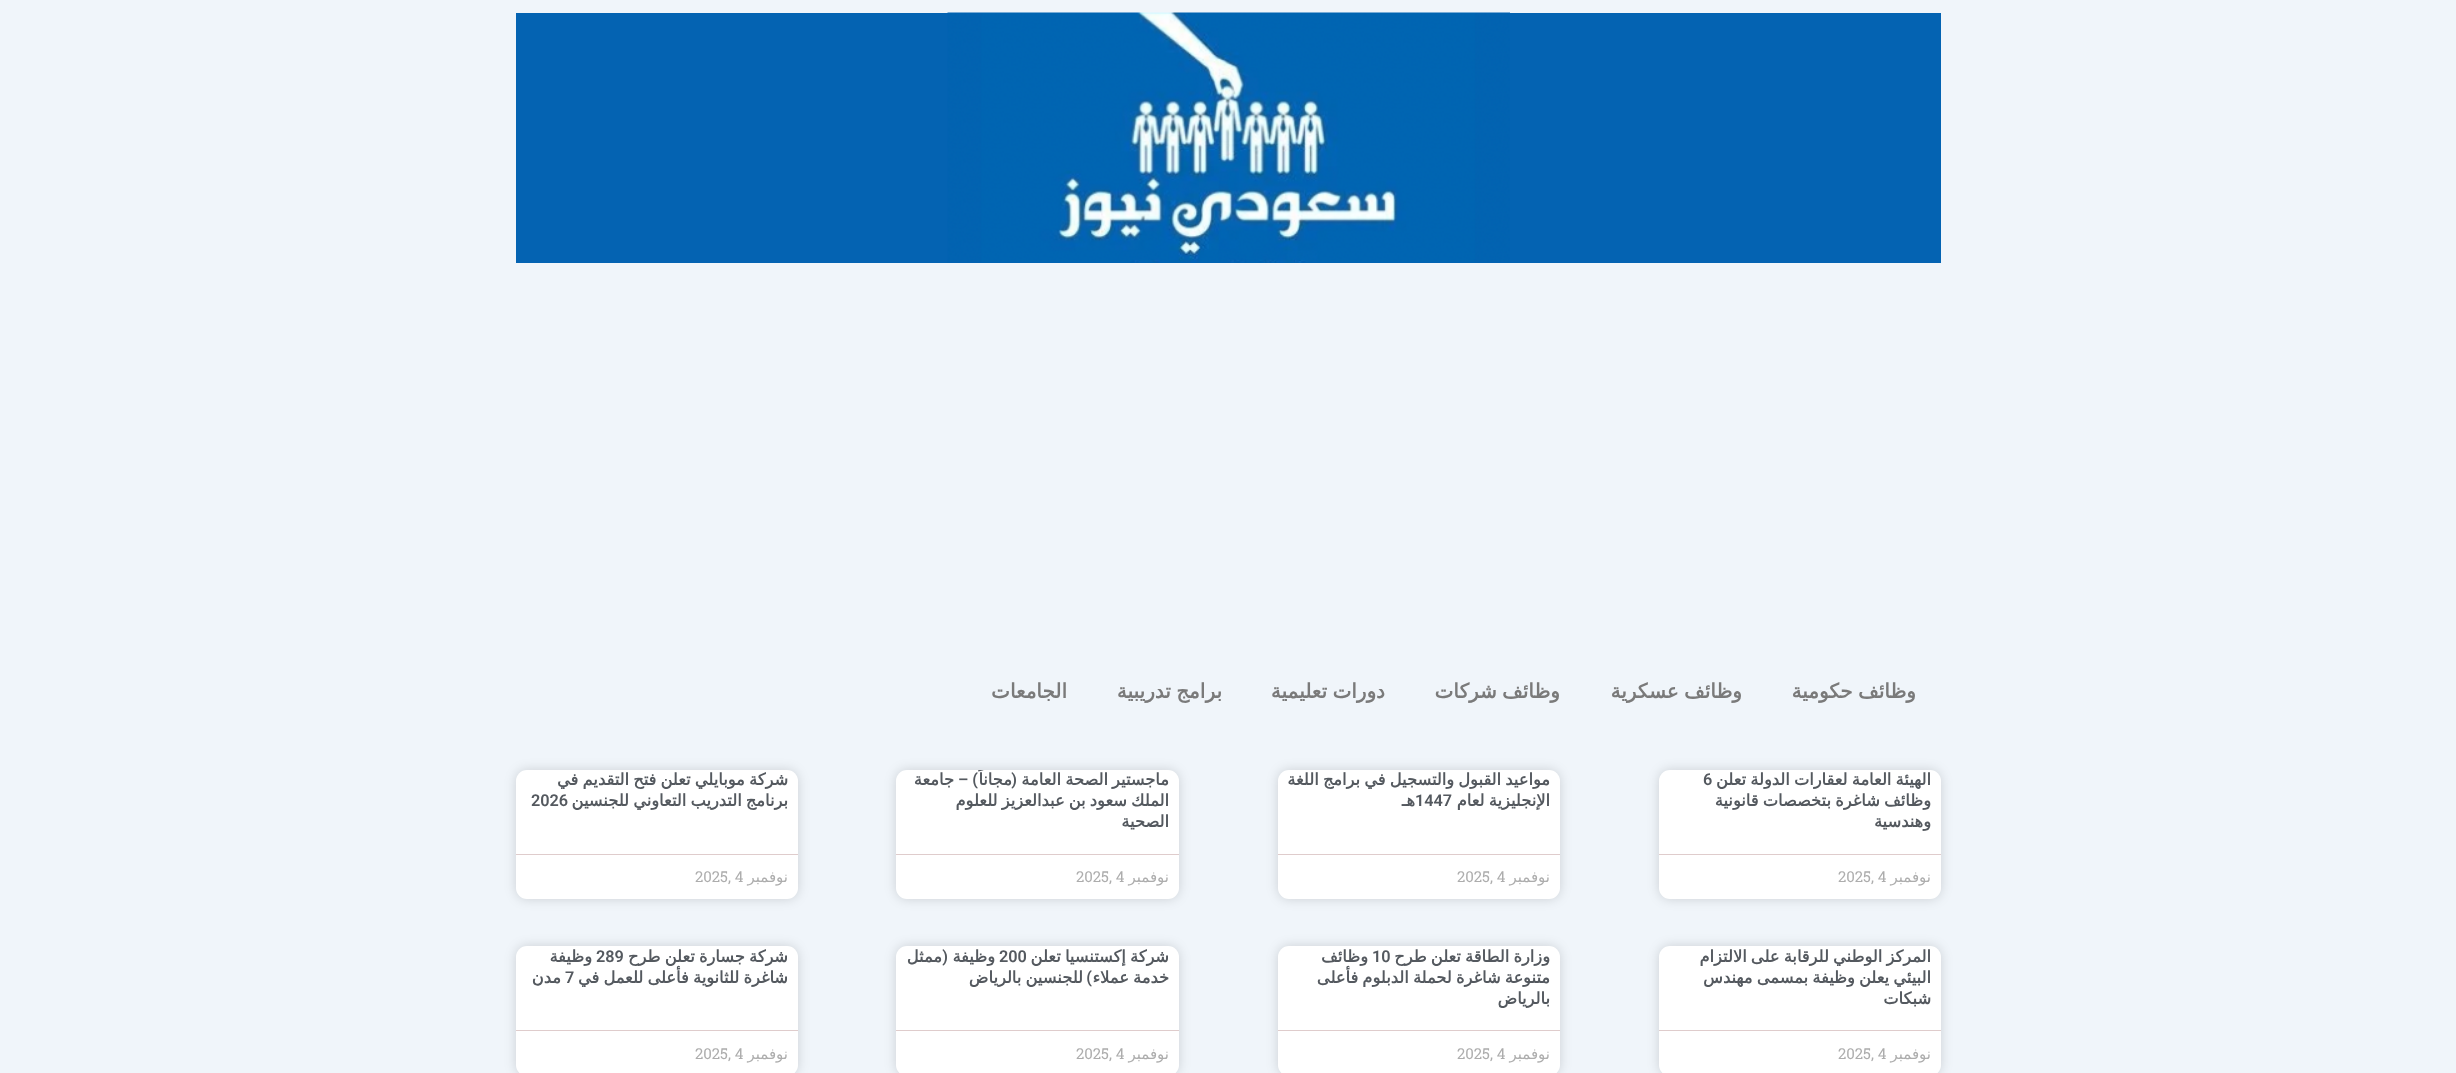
<svg xmlns="http://www.w3.org/2000/svg" xmlns:xlink="http://www.w3.org/1999/xlink" width="2456" height="1073" viewBox="0 0 2456 1073">
<style>
.cls-1{font:bold 20px DejaVu Sans;direction:rtl;fill:#7a7a7a}
.cls-2{font:bold 16.25px DejaVu Sans;direction:rtl;fill:#54595f}
.cls-3{font:600 16.25px Roboto;fill:#54595f}
.cls-4{font:15px DejaVu Sans;direction:rtl;fill:#adadad}
.cls-5{font:15px Roboto Slab;fill:#adadad}
.cls-6{font:600 16.25px Roboto;direction:rtl;fill:#54595f}
</style>
<defs>
<clipPath id="clip1"><rect x="896" y="770" width="283" height="129" rx="11"/></clipPath>
</defs>
<rect width="100%" height="100%" fill="#f0f5fa"/>
<rect fill="#0463b2" x="516" y="13" width="1425" height="250"/>
<image xlink:href="image0.png" x="947" y="12" width="563" height="251"/>
<rect fill="#000000" fill-opacity="0.15" filter="blur(6px)" x="1659" y="770" width="282" height="129" rx="11"/>
<rect fill="#ffffff" x="1659" y="770" width="282" height="129" rx="11"/>
<rect fill="#dfcccc" x="1659" y="854" width="282" height="1"/>
<rect fill="#000000" fill-opacity="0.15" filter="blur(6px)" x="1278" y="770" width="282" height="129" rx="11"/>
<rect fill="#ffffff" x="1278" y="770" width="282" height="129" rx="11"/>
<rect fill="#dfcccc" x="1278" y="854" width="282" height="1"/>
<rect fill="#000000" fill-opacity="0.15" filter="blur(6px)" x="896" y="770" width="283" height="129" rx="11"/>
<rect fill="#ffffff" x="896" y="770" width="283" height="129" rx="11"/>
<rect fill="#dfcccc" x="896" y="854" width="283" height="1"/>
<rect fill="#000000" fill-opacity="0.15" filter="blur(6px)" x="516" y="770" width="282" height="129" rx="11"/>
<rect fill="#ffffff" x="516" y="770" width="282" height="129" rx="11"/>
<rect fill="#dfcccc" x="516" y="854" width="282" height="1"/>
<rect fill="#000000" fill-opacity="0.15" filter="blur(6px)" x="1659" y="946" width="282" height="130" rx="11"/>
<rect fill="#ffffff" x="1659" y="946" width="282" height="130" rx="11"/>
<rect fill="#dfcccc" x="1659" y="1030" width="282" height="1"/>
<rect fill="#000000" fill-opacity="0.15" filter="blur(6px)" x="1278" y="946" width="282" height="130" rx="11"/>
<rect fill="#ffffff" x="1278" y="946" width="282" height="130" rx="11"/>
<rect fill="#dfcccc" x="1278" y="1030" width="282" height="1"/>
<rect fill="#000000" fill-opacity="0.15" filter="blur(6px)" x="896" y="946" width="283" height="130" rx="11"/>
<rect fill="#ffffff" x="896" y="946" width="283" height="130" rx="11"/>
<rect fill="#dfcccc" x="896" y="1030" width="283" height="1"/>
<rect fill="#000000" fill-opacity="0.15" filter="blur(6px)" x="516" y="946" width="282" height="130" rx="11"/>
<rect fill="#ffffff" x="516" y="946" width="282" height="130" rx="11"/>
<rect fill="#dfcccc" x="516" y="1030" width="282" height="1"/>
<text class="cls-1" x="1916" y="698" word-spacing="-1">وظائف حكومية</text>
<text class="cls-1" x="1742" y="698" word-spacing="-1">وظائف عسكرية</text>
<text class="cls-1" x="1560" y="698" word-spacing="-1">وظائف شركات</text>
<text class="cls-1" x="1385" y="698" word-spacing="-1">دورات تعليمية</text>
<text class="cls-1" x="1222" y="698" word-spacing="-1">برامج تدريبية</text>
<text class="cls-1" x="1067" y="698">الجامعات</text>
<text class="cls-2" x="1931" y="785" word-spacing="-1">الهيئة العامة لعقارات الدولة تعلن</text>
<text class="cls-3" x="1703" y="785">6</text>
<text class="cls-2"><tspan x="1931" y="806" word-spacing="-1">وظائف شاغرة بتخصصات قانونية</tspan><tspan x="1931" y="827">وهندسية</tspan></text>
<text class="cls-4" x="1931" y="882">نوفمبر</text>
<text class="cls-5" x="1838" y="882">2025, 4</text>
<text class="cls-2"><tspan x="1550" y="785" word-spacing="-1">مواعيد القبول والتسجيل في برامج اللغة</tspan><tspan x="1550" y="806" word-spacing="-1">الإنجليزية لعام</tspan></text>
<text class="cls-3" x="1415" y="806">1447</text>
<text class="cls-2" x="1415" y="806">هـ</text>
<text class="cls-4" x="1550" y="882">نوفمبر</text>
<text class="cls-5" x="1457" y="882">2025, 4</text>
<text class="cls-2" x="1169" y="785">ماجستير</text>
<text class="cls-2" x="1108" y="785">الصحة</text>
<text class="cls-2" x="1061" y="785">العامة</text>
<text class="cls-6" x="1017" y="785">(</text>
<text class="cls-6" x="978" y="785">) –</text>
<g clip-path="url(#clip1)">
<text class="cls-2" x="1012" y="785">مجاناً</text>
</g>
<text class="cls-2" x="954" y="785">جامعة</text>
<text class="cls-2"><tspan x="1169" y="806" word-spacing="-1">الملك سعود بن عبدالعزيز للعلوم</tspan><tspan x="1169" y="827">الصحية</tspan></text>
<text class="cls-4" x="1169" y="882">نوفمبر</text>
<text class="cls-5" x="1076" y="882">2025, 4</text>
<text class="cls-2"><tspan x="788" y="785" word-spacing="-1">شركة موبايلي تعلن فتح التقديم في</tspan><tspan x="788" y="806" word-spacing="-1">برنامج التدريب التعاوني للجنسين</tspan></text>
<text class="cls-3" x="531" y="806">2026</text>
<text class="cls-4" x="788" y="882">نوفمبر</text>
<text class="cls-5" x="695" y="882">2025, 4</text>
<text class="cls-2"><tspan x="1931" y="962" word-spacing="-1">المركز الوطني للرقابة على الالتزام</tspan><tspan x="1931" y="983" word-spacing="-1">البيئي يعلن وظيفة بمسمى مهندس</tspan><tspan x="1931" y="1004">شبكات</tspan></text>
<text class="cls-4" x="1931" y="1059">نوفمبر</text>
<text class="cls-5" x="1838" y="1059">2025, 4</text>
<text class="cls-2" x="1550" y="962" word-spacing="-1">وزارة الطاقة تعلن طرح</text>
<text class="cls-3" x="1372" y="962">10</text>
<text class="cls-2" x="1368" y="962">وظائف</text>
<text class="cls-2"><tspan x="1550" y="983" word-spacing="-1">متنوعة شاغرة لحملة الدبلوم فأعلى</tspan><tspan x="1550" y="1004">بالرياض</tspan></text>
<text class="cls-4" x="1550" y="1059">نوفمبر</text>
<text class="cls-5" x="1457" y="1059">2025, 4</text>
<text class="cls-2" x="1169" y="962" word-spacing="-1">شركة إكستنسيا تعلن</text>
<text class="cls-3" x="999" y="962">200</text>
<text class="cls-2" x="995" y="962">وظيفة</text>
<text class="cls-6" x="948" y="962">(</text>
<text class="cls-2" x="942" y="962">ممثل</text>
<text class="cls-2" x="1169" y="983" word-spacing="-1">خدمة عملاء</text>
<text class="cls-6" x="1092" y="983">)</text>
<text class="cls-2" x="1083" y="983" word-spacing="-1">للجنسين بالرياض</text>
<text class="cls-4" x="1169" y="1059">نوفمبر</text>
<text class="cls-5" x="1076" y="1059">2025, 4</text>
<text class="cls-2" x="788" y="962" word-spacing="-1">شركة جسارة تعلن طرح</text>
<text class="cls-3" x="596" y="962">289</text>
<text class="cls-2" x="592" y="962">وظيفة</text>
<text class="cls-2" x="788" y="983" word-spacing="-1">شاغرة للثانوية فأعلى للعمل في</text>
<text class="cls-3" x="565" y="983">7</text>
<text class="cls-2" x="561" y="983">مدن</text>
<text class="cls-4" x="788" y="1059">نوفمبر</text>
<text class="cls-5" x="695" y="1059">2025, 4</text>
</svg>
